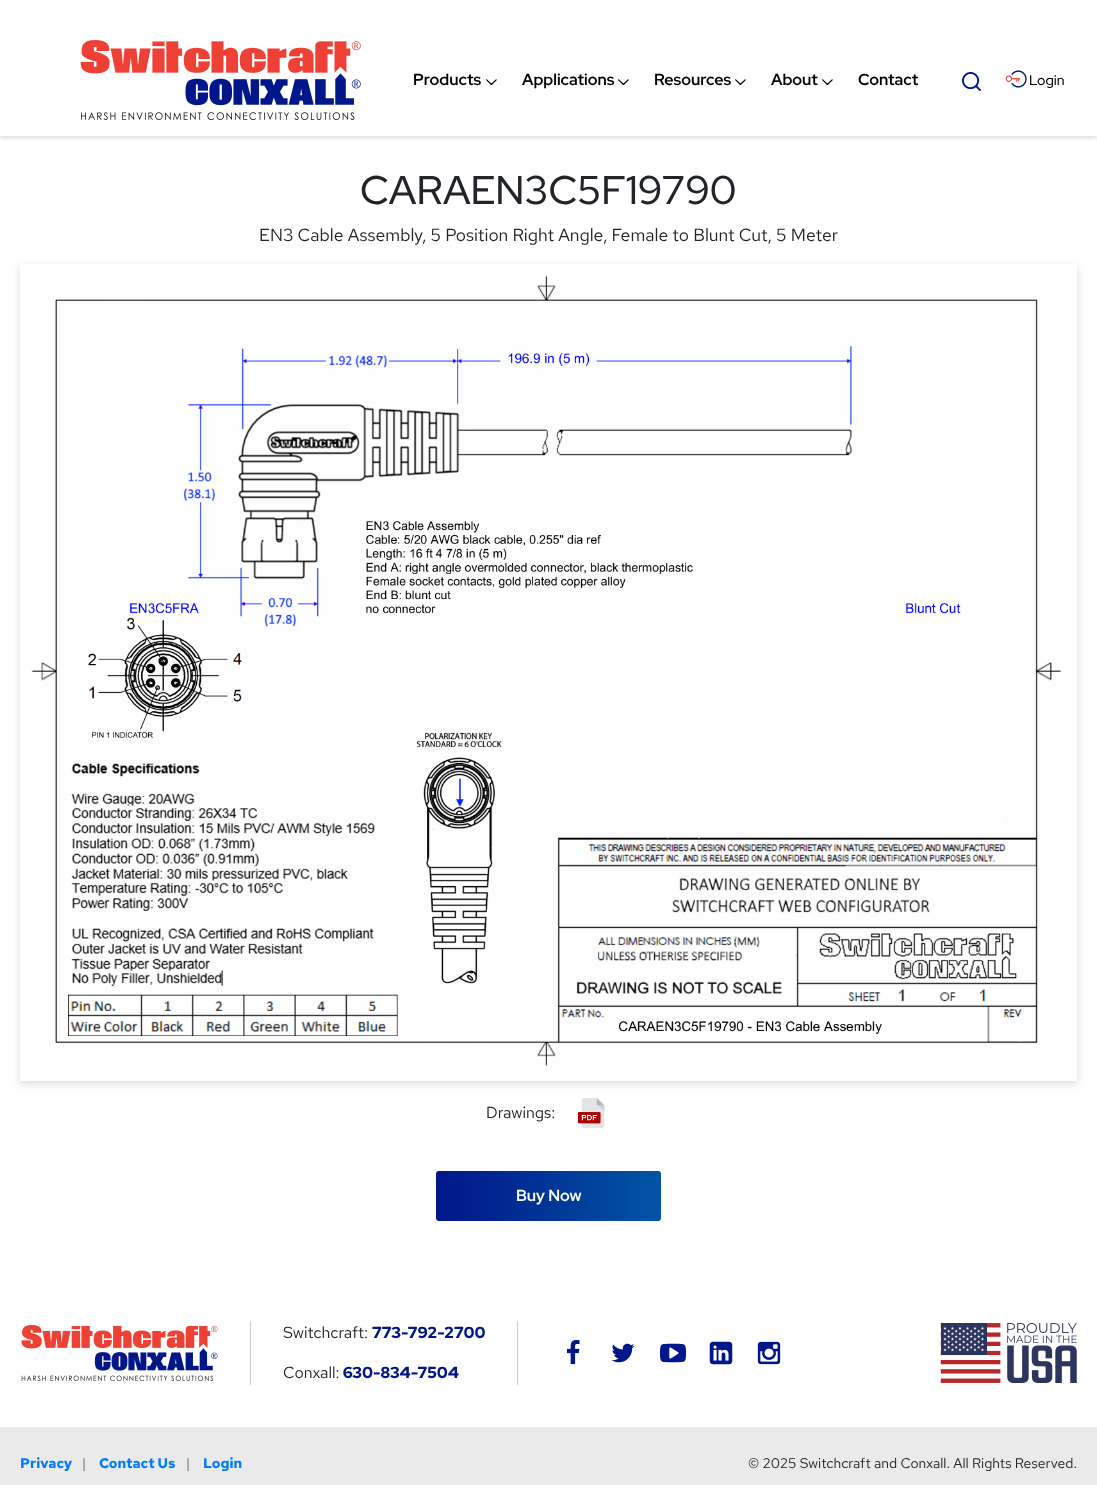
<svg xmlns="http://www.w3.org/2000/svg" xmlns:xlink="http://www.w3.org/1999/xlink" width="1097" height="1485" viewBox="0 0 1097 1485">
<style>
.cls-1{font:bold 16px Red Hat Display;fill:#000000}
.cls-2{font:bold 12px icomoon;fill:#000000}
.cls-3{font:500 14px Red Hat Display;fill:#000000}
.cls-4{font:500 40px Red Hat Display;fill:#212529}
.cls-5{font:17.6px Red Hat Text;fill:#212529}
.cls-6{font:16px Red Hat Text;fill:#212529}
.cls-7{font:bold 16px Red Hat Display;fill:#ffffff}
.cls-8{font:bold 16px Red Hat Text;fill:#001689}
.cls-9{font:bold 14px Red Hat Text;fill:#007bff}
.cls-10{font:14px Red Hat Text;fill:#666666}
.cls-11{font:14px Red Hat Text;fill:#212529}
</style>
<defs>
<clipPath id="clip1"><rect x="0" y="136" width="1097" height="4"/></clipPath>
<clipPath id="clip2"><path d="M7 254H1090V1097H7ZM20 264H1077V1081H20Z" clip-rule="evenodd"/></clipPath>
<linearGradient id="g1" gradientUnits="userSpaceOnUse" x1="661" y1="1196" x2="436" y2="1196"><stop offset="0" stop-color="#0055a5"/><stop offset="1" stop-color="#001689"/></linearGradient>
</defs>
<rect width="100%" height="100%" fill="#ffffff"/>
<g clip-path="url(#clip1)">
<rect fill="#000000" fill-opacity="0.14" filter="blur(2px)" x="0" y="2" width="1097" height="136"/>
</g>
<image xlink:href="image0.png" x="80" y="40" width="281" height="80"/>
<image xlink:href="image1.png" x="962" y="72" width="19" height="19"/>
<image xlink:href="image2.png" x="1005" y="70" width="22" height="18"/>
<g clip-path="url(#clip2)">
<rect fill="#000000" fill-opacity="0.14" filter="blur(4px)" x="20" y="267" width="1057" height="817"/>
</g>
<image xlink:href="image3.png" x="31" y="275" width="1031" height="791"/>
<image xlink:href="image4.png" x="577" y="1098" width="28" height="30"/>
<rect fill="url(#g1)" x="436" y="1171" width="225" height="50" rx="3"/>
<image xlink:href="image5.png" x="21" y="1325" width="197" height="56"/>
<rect fill="#cccccc" x="517" y="1321" width="1" height="64"/>
<rect fill="#cccccc" x="250" y="1321" width="1" height="64"/>
<image xlink:href="image6.png" x="566" y="1340" width="14" height="25"/>
<image xlink:href="image7.png" x="611" y="1343" width="24" height="20"/>
<image xlink:href="image8.png" x="660" y="1343" width="26" height="20"/>
<image xlink:href="image9.png" x="709" y="1341" width="24" height="24"/>
<image xlink:href="image10.png" x="757" y="1341" width="24" height="24"/>
<image xlink:href="image11.png" x="940" y="1323" width="137" height="60"/>
<rect fill="#eaeaea" x="0" y="1427" width="1097" height="58"/>
<text class="cls-1" x="413" y="85">Products</text>
<text class="cls-2" x="486" y="76" transform="rotate(90 486 76)">〉</text>
<text class="cls-1" x="522" y="85">Applications</text>
<text class="cls-2" x="618" y="76" transform="rotate(90 618 76)">〉</text>
<text class="cls-1" x="654" y="85">Resources</text>
<text class="cls-2" x="735" y="76" transform="rotate(90 735 76)">〉</text>
<text class="cls-1" x="771" y="85">About</text>
<text class="cls-2" x="822" y="76" transform="rotate(90 822 76)">〉</text>
<text class="cls-1" x="858" y="85">Contact</text>
<text class="cls-3" x="1029" y="85">Login</text>
<text class="cls-4" x="360" y="204">CARAEN3C5F19790</text>
<text class="cls-5" x="259" y="241">EN3 Cable Assembly, 5 Position Right Angle, Female to Blunt Cut, 5 Meter</text>
<text class="cls-6" x="486" y="1118">Drawings:</text>
<text class="cls-7" x="516" y="1201">Buy Now</text>
<text class="cls-6" x="283" y="1338">Switchcraft:</text>
<text class="cls-8" x="372" y="1338">773-792-2700</text>
<text class="cls-6" x="283" y="1378">Conxall:</text>
<text class="cls-8" x="343" y="1378">630-834-7504</text>
<text class="cls-9" x="20" y="1468">Privacy</text>
<text class="cls-10" x="82" y="1468">|</text>
<text class="cls-9" x="99" y="1468">Contact Us</text>
<text class="cls-10" x="186" y="1468">|</text>
<text class="cls-9" x="203" y="1468">Login</text>
<text class="cls-11" x="748" y="1468">© 2025 Switchcraft and Conxall. All Rights Reserved.</text>
</svg>
